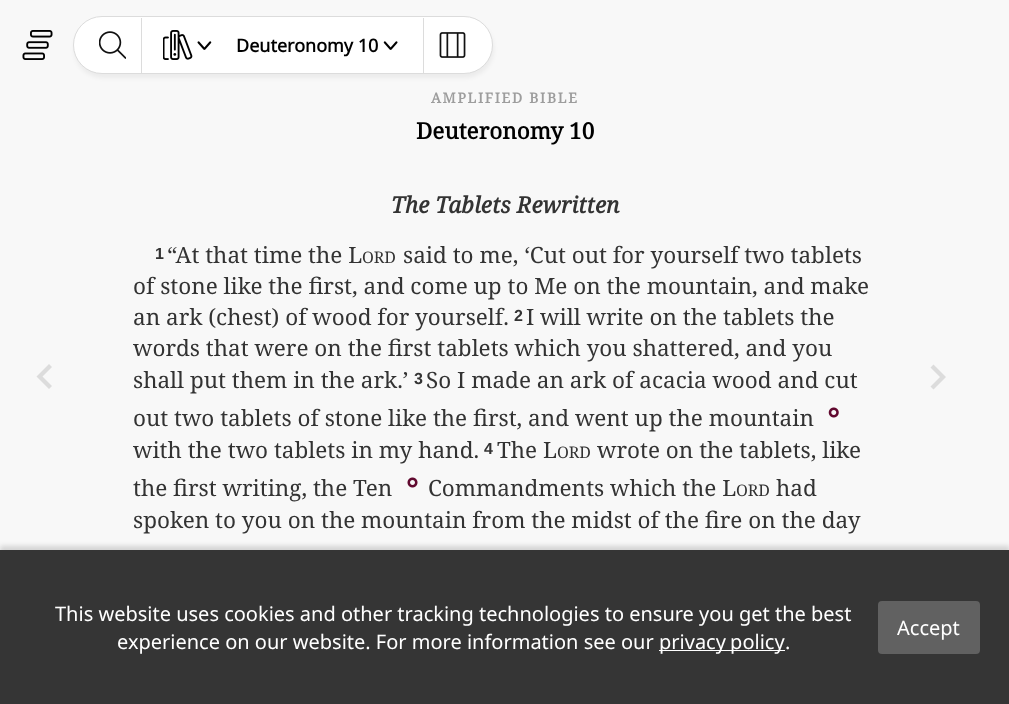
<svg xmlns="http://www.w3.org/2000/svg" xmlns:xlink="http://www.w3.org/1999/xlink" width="1009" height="704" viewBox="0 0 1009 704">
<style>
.cls-1{font:bold 18px Noto Sans;fill:#000000}
.cls-2{font:bold 14px Noto Serif;letter-spacing:1.7px;fill:#9d9d9d}
.cls-3{font:bold 22.5px Noto Serif;fill:#000000}
.cls-4{font:italic bold 22.5px Noto Serif;fill:#333333}
.cls-5{font:bold 16px Liberation Sans;fill:#333333}
.cls-6{font:22.5px Noto Serif;fill:#333333}
.cls-7{font:16px Noto Serif;fill:#333333}
.cls-8{font:20px Noto Sans;fill:#ffffff}
</style>
<rect width="100%" height="100%" fill="#f8f8f8"/>
<image xlink:href="image0.png" x="22" y="30" width="31" height="30"/>
<rect fill="#000000" fill-opacity="0.05" filter="blur(2px)" x="74" y="20" width="420" height="58" rx="29"/>
<rect fill="#ffffff" stroke="#dcdcdc" x="73.5" y="16.5" width="419" height="57" rx="28.5"/>
<rect fill="#dcdcdc" x="141" y="18" width="1" height="55"/>
<image xlink:href="image1.png" x="99" y="31" width="27" height="28"/>
<image xlink:href="image2.png" x="163" y="30" width="30" height="30"/>
<image xlink:href="image3.png" x="197" y="41" width="15" height="9"/>
<image xlink:href="image4.png" x="383" y="41" width="15" height="9"/>
<rect fill="#dcdcdc" x="423" y="18" width="1" height="55"/>
<image xlink:href="image5.png" x="439" y="32" width="27" height="26"/>
<path fill="#dcdcdc" d="M52 386L42.5 376.5L52 367L49 364L36.5 376.5L49 389Z"/>
<image xlink:href="image6.png" x="828" y="407" width="11" height="11"/>
<image xlink:href="image7.png" x="407" y="477" width="11" height="11"/>
<path fill="#dcdcdc" d="M930.5 386.5L940 377L930.5 367.5L933.5 364.5L946 377L933.5 389.5Z"/>
<rect fill="#000000" fill-opacity="0.15" filter="blur(2.5px)" x="0" y="546" width="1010" height="155"/>
<rect fill="#353535" x="0" y="550" width="1009" height="154"/>
<rect fill="#ffffff" x="659" y="650" width="126" height="1"/>
<rect fill="#616161" x="878" y="601" width="102" height="53" rx="4"/>
<text class="cls-1" x="236" y="52">Deuteronomy 10</text>
<text class="cls-2" x="431" y="103">AMPLIFIED BIBLE</text>
<text class="cls-3" x="416" y="139">Deuteronomy 10</text>
<text class="cls-4" x="391" y="213">The Tablets Rewritten</text>
<text class="cls-5" x="155" y="259">1</text>
<text class="cls-6" x="167" y="263">“At that time the L</text>
<text class="cls-7" x="362" y="263">ORD</text>
<text class="cls-6" x="403" y="263">said to me, ‘Cut out for yourself two tablets</text>
<text class="cls-6"><tspan x="133" y="294">of stone like the first, and come up to Me on the mountain, and make</tspan><tspan x="133" y="325">an ark (chest) of wood for yourself.</tspan></text>
<text class="cls-5" x="514" y="321">2</text>
<text class="cls-6" x="526" y="325">I will write on the tablets the</text>
<text class="cls-6"><tspan x="133" y="356">words that were on the first tablets which you shattered, and you</tspan><tspan x="133" y="388">shall put them in the ark.’</tspan></text>
<text class="cls-5" x="414" y="384">3</text>
<text class="cls-6" x="426" y="388">So I made an ark of acacia wood and cut</text>
<text class="cls-6"><tspan x="133" y="426">out two tablets of stone like the first, and went up the mountain</tspan><tspan x="133" y="458">with the two tablets in my hand.</tspan></text>
<text class="cls-5" x="484" y="454">4</text>
<text class="cls-6" x="497" y="458">The L</text>
<text class="cls-7" x="557" y="458">ORD</text>
<text class="cls-6" x="597" y="458">wrote on the tablets, like</text>
<text class="cls-6" x="133" y="496">the first writing, the Ten</text>
<text class="cls-6" x="428" y="496">Commandments which the L</text>
<text class="cls-7" x="736" y="496">ORD</text>
<text class="cls-6" x="776" y="496">had</text>
<text class="cls-6" x="133" y="528">spoken to you on the mountain from the midst of the fire on the day</text>
<text class="cls-8" x="55" y="621">This website uses cookies and other tracking technologies to ensure you get the best</text>
<text class="cls-8" x="117" y="649">experience on our website. For more information see our</text>
<text class="cls-8" x="659" y="649" word-spacing="-1">privacy policy</text>
<text class="cls-8" x="785" y="649">.</text>
<text class="cls-8" x="897" y="635">Accept</text>
</svg>
